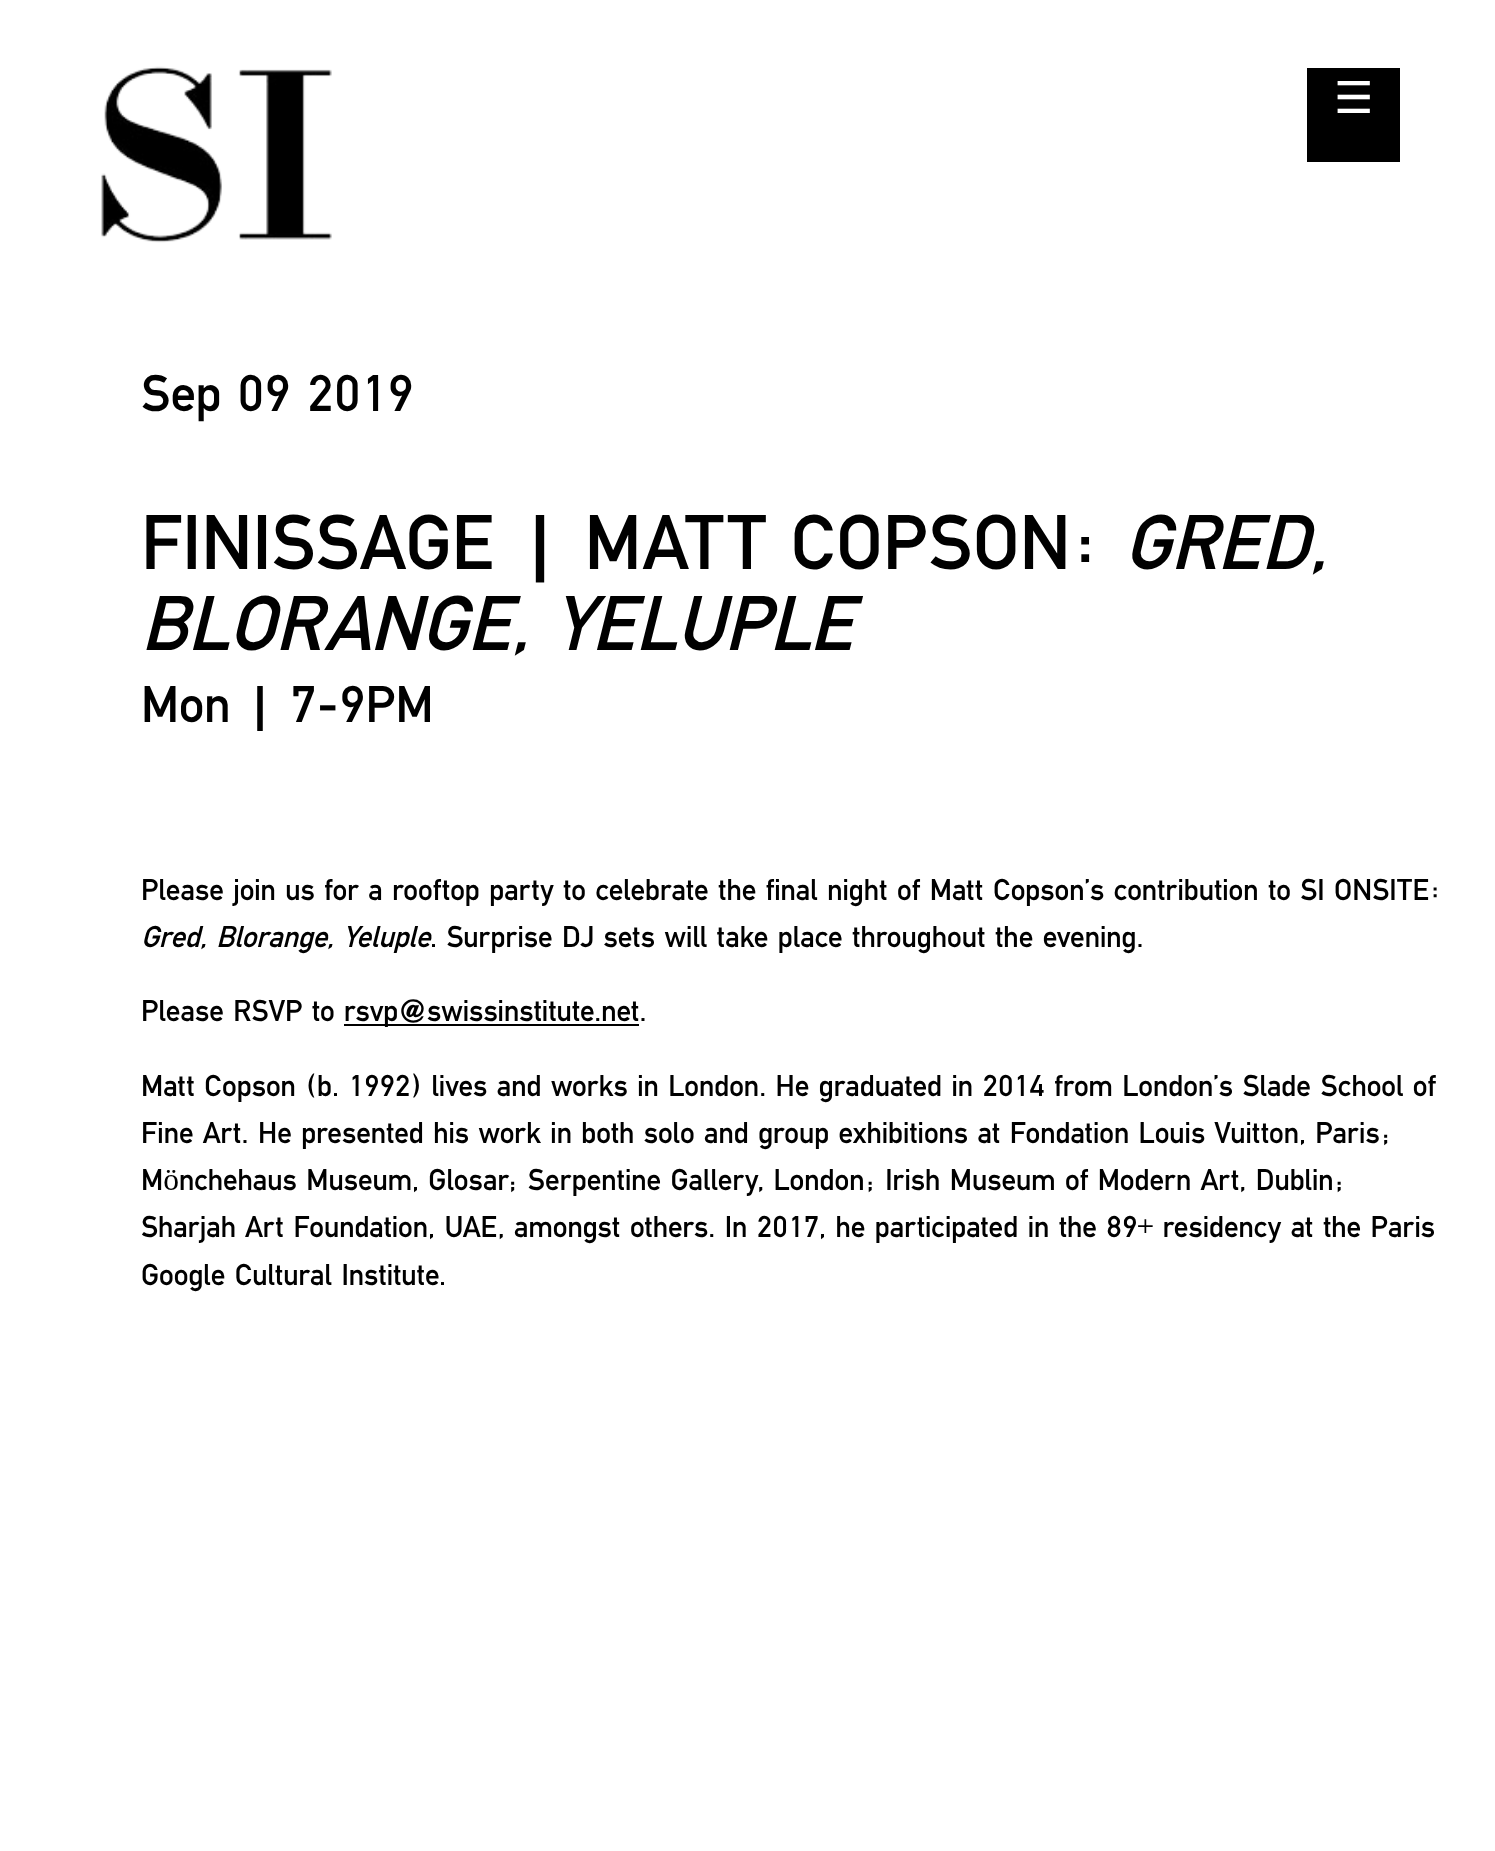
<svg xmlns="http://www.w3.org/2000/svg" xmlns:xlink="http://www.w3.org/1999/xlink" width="1495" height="1851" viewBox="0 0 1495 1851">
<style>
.cls-1{font:44px DejaVu Sans;fill:#ffffff}
.cls-2{font:54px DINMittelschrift;fill:#000000}
.cls-3{font:81px DINMittelschrift;fill:#000000}
.cls-4{font:italic 81px DINMittelschrift;fill:#000000}
.cls-5{font:31.5px DINMittelschrift;fill:#000000}
.cls-6{font:italic 31.5px DINMittelschrift;fill:#000000}
</style>
<rect width="100%" height="100%" fill="#ffffff"/>
<image xlink:href="image0.png" x="101" y="66" width="231" height="177"/>
<rect fill="#000000" x="1307" y="68" width="93" height="94"/>
<rect fill="#000000" x="344" y="1024" width="295" height="2"/>
<text class="cls-1" x="1334" y="113">☰</text>
<text class="cls-2" x="141" y="411">Sep 09 2019</text>
<text class="cls-3" x="141" y="569">FINISSAGE | MATT COPSON:</text>
<text class="cls-4" x="1124" y="569">GRED,</text>
<text class="cls-4" x="141" y="650">BLORANGE, YELUPLE</text>
<text class="cls-2" x="141" y="722">Mon | 7-9PM</text>
<text class="cls-5" x="141" y="900">Please join us for a rooftop party to celebrate the final night of Matt Copson’s contribution to SI ONSITE:</text>
<text class="cls-6" x="141" y="947">Gred, Blorange, Yeluple</text>
<text class="cls-5" x="430" y="947">. Surprise DJ sets will take place throughout the evening.</text>
<text class="cls-5" x="141" y="1021">Please RSVP to</text>
<text class="cls-5" x="344" y="1021">rsvp@swissinstitute.net.</text>
<text class="cls-5"><tspan x="141" y="1096">Matt Copson (b. 1992) lives and works in London. He graduated in 2014 from London’s Slade School of</tspan><tspan x="141" y="1143">Fine Art. He presented his work in both solo and group exhibitions at Fondation Louis Vuitton, Paris;</tspan><tspan x="141" y="1190">Mönchehaus Museum, Glosar; Serpentine Gallery, London; Irish Museum of Modern Art, Dublin;</tspan><tspan x="141" y="1237">Sharjah Art Foundation, UAE, amongst others. In 2017, he participated in the 89+ residency at the Paris</tspan><tspan x="141" y="1285">Google Cultural Institute.</tspan></text>
</svg>
